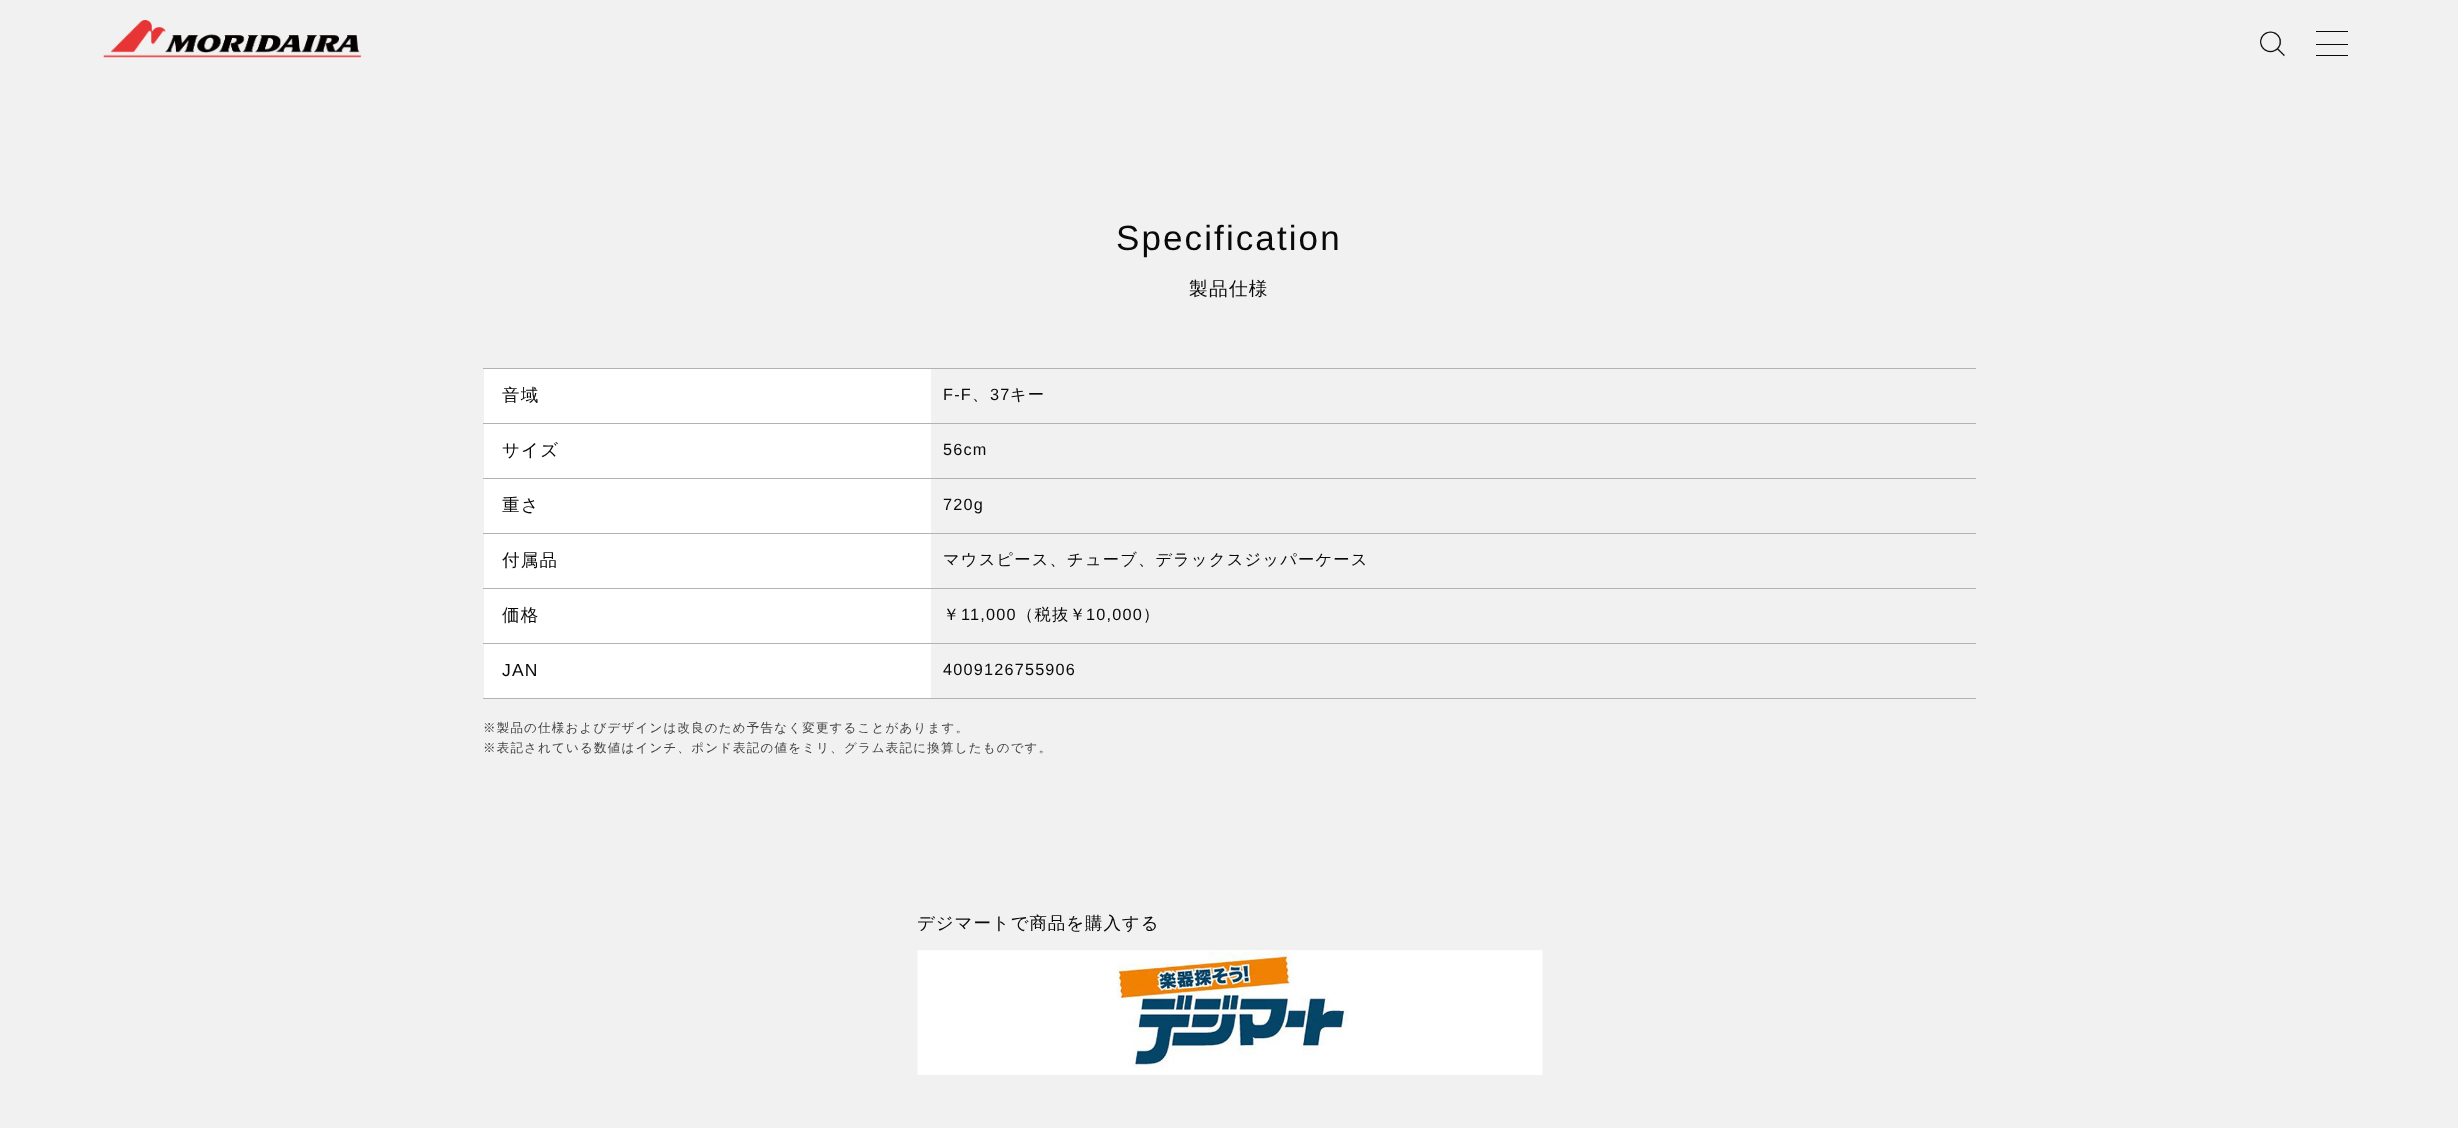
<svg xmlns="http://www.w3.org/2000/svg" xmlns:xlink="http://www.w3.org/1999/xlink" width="2458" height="1128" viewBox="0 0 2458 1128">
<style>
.cls-1{font:35px Liberation Sans;letter-spacing:2.1px;fill:#090909}
.cls-2{font:500 18.75px WenQuanYi Zen Hei;letter-spacing:1.2px;fill:#090909}
.cls-3{font:500 17.5px WenQuanYi Zen Hei;letter-spacing:1.2px;fill:#090909}
.cls-4{font:16.25px Liberation Sans;letter-spacing:1.2px;fill:#090909}
.cls-5{font:500 16.25px WenQuanYi Zen Hei;letter-spacing:1.2px;fill:#090909}
.cls-6{font:17.5px Liberation Sans;letter-spacing:1.2px;fill:#090909}
.cls-7{font:500 12.5px WenQuanYi Zen Hei;letter-spacing:1.2px;fill:#434343}
.cls-8{font:500 17.5px WenQuanYi Zen Hei;letter-spacing:0.9px;fill:#090909}
</style>
<rect width="100%" height="100%" fill="#f1f1f1"/>
<image xlink:href="image0.png" x="103" y="20" width="259" height="38"/>
<image xlink:href="image1.png" x="2260" y="31" width="25" height="26"/>
<rect fill="#090909" x="2316" y="31" width="32" height="1"/>
<rect fill="#090909" x="2316" y="44" width="32" height="1"/>
<rect fill="#090909" x="2316" y="55" width="32" height="1"/>
<rect fill="#b2b2b2" x="483" y="368" width="1493" height="1"/>
<rect fill="#b2b2b2" x="483" y="423" width="1493" height="1"/>
<rect fill="#ffffff" x="484" y="369" width="447" height="54"/>
<rect fill="#b2b2b2" x="483" y="478" width="1493" height="1"/>
<rect fill="#ffffff" x="484" y="424" width="447" height="54"/>
<rect fill="#b2b2b2" x="483" y="533" width="1493" height="1"/>
<rect fill="#ffffff" x="484" y="479" width="447" height="54"/>
<rect fill="#b2b2b2" x="483" y="588" width="1493" height="1"/>
<rect fill="#ffffff" x="484" y="534" width="447" height="54"/>
<rect fill="#b2b2b2" x="483" y="643" width="1493" height="1"/>
<rect fill="#ffffff" x="484" y="589" width="447" height="54"/>
<rect fill="#b2b2b2" x="483" y="698" width="1493" height="1"/>
<rect fill="#ffffff" x="484" y="644" width="447" height="54"/>
<image xlink:href="image2.png" x="917" y="950" width="626" height="125"/>
<text class="cls-1" x="1116" y="250">Specification</text>
<text class="cls-2" x="1189" y="295">製品仕様</text>
<text class="cls-3" x="502" y="401">音域</text>
<text class="cls-4" x="943" y="400">F-F</text>
<text class="cls-5" x="972" y="400">、</text>
<text class="cls-4" x="990" y="400">37</text>
<text class="cls-5" x="1010" y="400">キー</text>
<text class="cls-3" x="502" y="456">サイズ</text>
<text class="cls-4" x="943" y="455">56cm</text>
<text class="cls-3" x="502" y="511">重さ</text>
<text class="cls-4" x="943" y="510">720g</text>
<text class="cls-3" x="502" y="566">付属品</text>
<text class="cls-5" x="943" y="565">マウスピース、チューブ、デラックスジッパーケース</text>
<text class="cls-3" x="502" y="621">価格</text>
<text class="cls-5" x="943" y="620">￥</text>
<text class="cls-4" x="961" y="620">11,000</text>
<text class="cls-5" x="1017" y="620">（税抜￥</text>
<text class="cls-4" x="1086" y="620">10,000</text>
<text class="cls-5" x="1143" y="620">）</text>
<text class="cls-6" x="502" y="676">JAN</text>
<text class="cls-4" x="943" y="675">4009126755906</text>
<text class="cls-7"><tspan x="483" y="732">※製品の仕様およびデザインは改良のため予告なく変更することがあります。</tspan><tspan x="483" y="752">※表記されている数値はインチ、ポンド表記の値をミリ、グラム表記に換算したものです。</tspan></text>
<text class="cls-8" x="917" y="929">デジマートで商品を購入する</text>
</svg>
